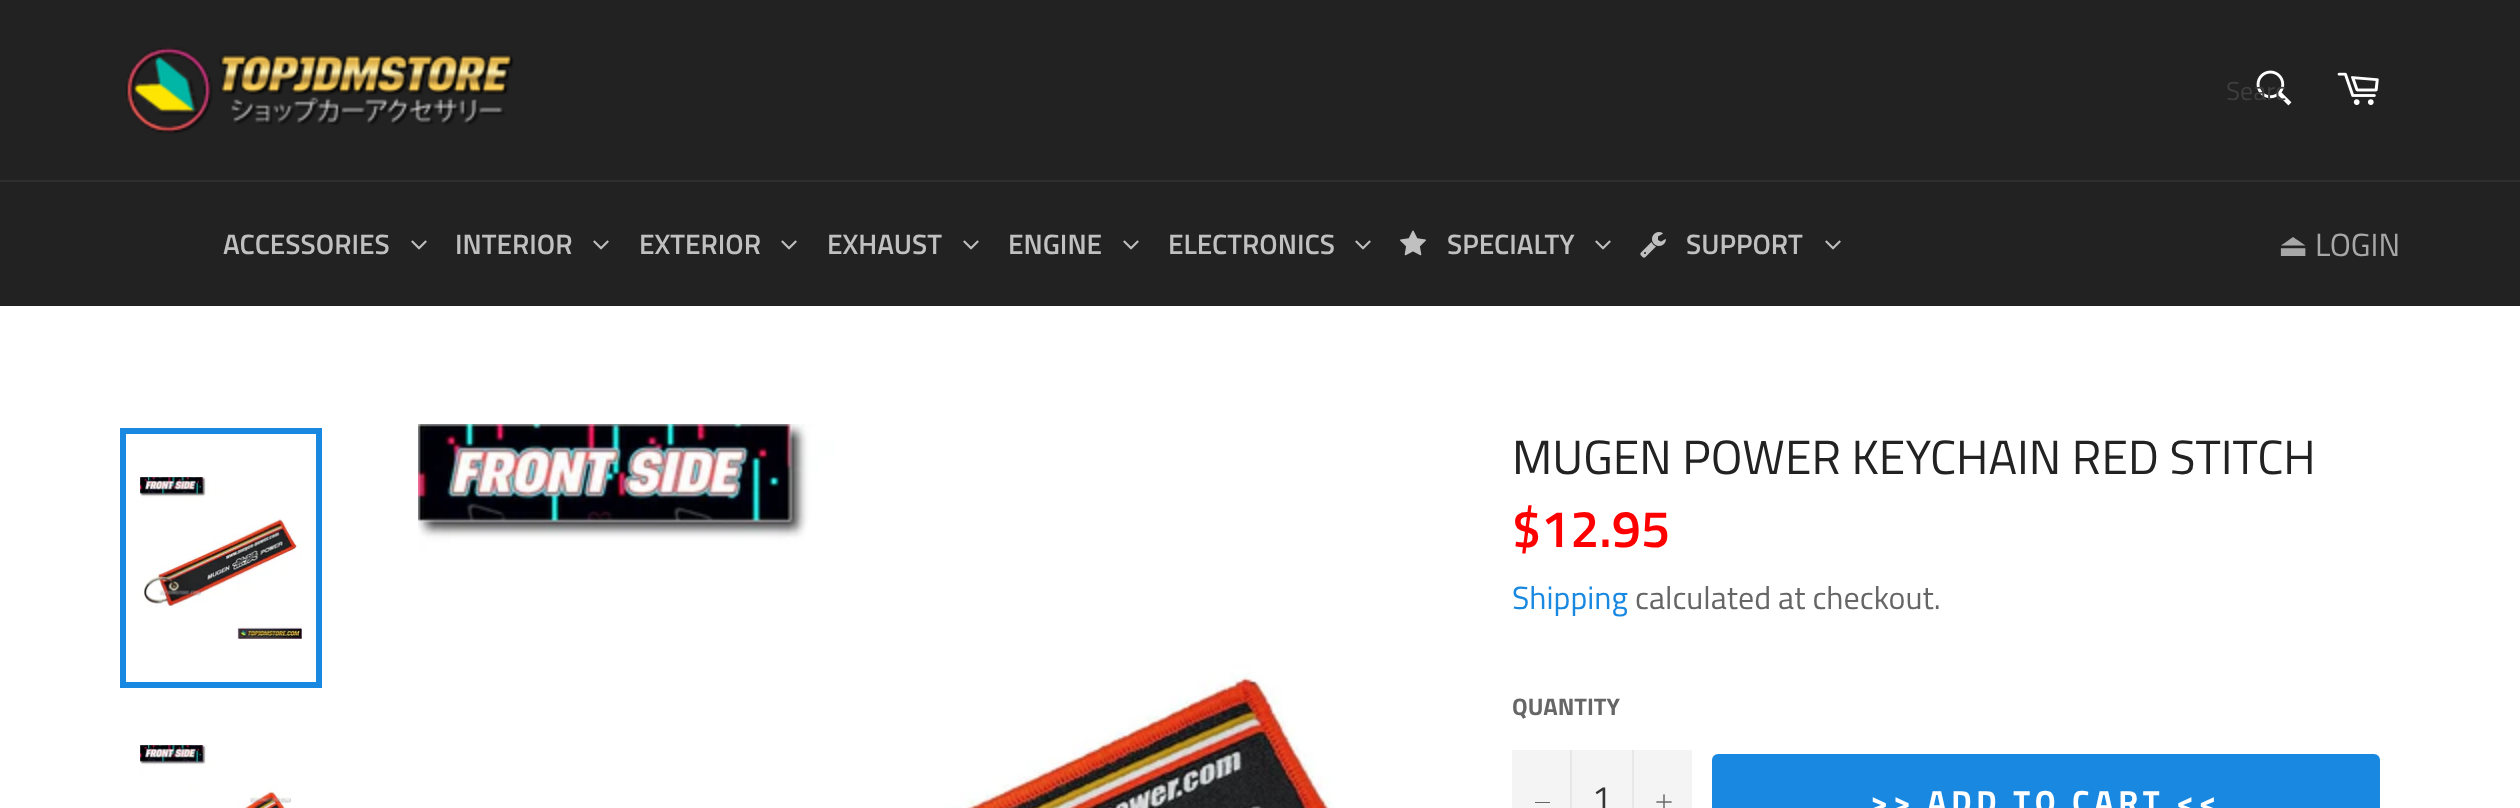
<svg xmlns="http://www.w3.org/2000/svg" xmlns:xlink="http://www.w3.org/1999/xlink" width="2520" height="808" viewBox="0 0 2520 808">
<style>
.cls-1{font:26px Titillium Web;fill:#3e3e3e}
.cls-2{font:600 28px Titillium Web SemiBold;fill:#c0c0c0}
.cls-3{font:32px DejaVu Sans;fill:#a7a7a7}
.cls-4{font:32px Titillium Web;fill:#a7a7a7}
.cls-5{font:48px Titillium Web;fill:#222222}
.cls-6{font:600 52px Titillium Web SemiBold;fill:#ff0000}
.cls-7{font:32px Titillium Web;fill:#1988e1}
.cls-8{font:32px Titillium Web;fill:#666666}
.cls-9{font:bold 24px Titillium Web;fill:#666666}
.cls-10{font:34px Titillium Web;fill:#333333}
.cls-11{font:bold 32px Titillium Web;letter-spacing:4.75px;fill:#ffffff}
</style>
<rect width="100%" height="100%" fill="#ffffff"/>
<rect fill="#222222" x="0" y="0" width="2520" height="180"/>
<image xlink:href="image0.png" x="126" y="47" width="388" height="87"/>
<image xlink:href="image1.png" x="2256" y="70" width="36" height="36"/>
<image xlink:href="image2.png" x="2337" y="72" width="42" height="33"/>
<rect fill="#222222" x="0" y="182" width="2520" height="124"/>
<rect fill="#2f2f2f" x="0" y="180" width="2520" height="2"/>
<image xlink:href="image3.png" x="411" y="240" width="16" height="10"/>
<image xlink:href="image3.png" x="593" y="240" width="16" height="10"/>
<image xlink:href="image3.png" x="781" y="240" width="16" height="10"/>
<image xlink:href="image3.png" x="963" y="240" width="16" height="10"/>
<image xlink:href="image3.png" x="1123" y="240" width="16" height="10"/>
<image xlink:href="image3.png" x="1355" y="240" width="16" height="10"/>
<image xlink:href="image4.png" x="1400" y="230" width="26" height="26"/>
<image xlink:href="image3.png" x="1595" y="240" width="16" height="10"/>
<image xlink:href="image5.png" x="1640" y="232" width="26" height="26"/>
<image xlink:href="image3.png" x="1825" y="240" width="16" height="10"/>
<image xlink:href="image6.png" x="140" y="477" width="162" height="162"/>
<rect fill="none" stroke="#1988e1" stroke-width="6" x="123" y="431" width="196" height="254"/>
<image xlink:href="image7.png" x="140" y="745" width="151" height="63"/>
<image xlink:href="image8.png" x="418" y="424" width="916" height="384"/>
<rect fill="#f4f4f4" x="1512" y="750" width="180" height="58"/>
<rect fill="#e7e7e7" x="1570" y="750" width="2" height="58"/>
<rect fill="#666666" x="1535" y="802" width="15" height="1"/>
<rect fill="#e7e7e7" x="1632" y="750" width="2" height="58"/>
<image xlink:href="image9.png" x="1656" y="794" width="16" height="14"/>
<rect fill="#1988e1" x="1712" y="754" width="668" height="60" rx="6"/>
<text class="cls-1" x="2226" y="100">Searc</text>
<text class="cls-2" x="223" y="254">ACCESSORIES</text>
<text class="cls-2" x="455" y="254">INTERIOR</text>
<text class="cls-2" x="639" y="254">EXTERIOR</text>
<text class="cls-2" x="827" y="254">EXHAUST</text>
<text class="cls-2" x="1008" y="254">ENGINE</text>
<text class="cls-2" x="1168" y="254">ELECTRONICS</text>
<text class="cls-2" x="1447" y="254">SPECIALTY</text>
<text class="cls-2" x="1686" y="254">SUPPORT</text>
<text class="cls-3" x="2278" y="256">⏏</text>
<text class="cls-4" x="2315" y="256">LOGIN</text>
<text class="cls-5" x="1512" y="474">MUGEN POWER KEYCHAIN RED STITCH</text>
<text class="cls-6" x="1512" y="547">$12.95</text>
<text class="cls-7" x="1512" y="609">Shipping</text>
<text class="cls-8" x="1635" y="609">calculated at checkout.</text>
<text class="cls-9" x="1512" y="715">QUANTITY</text>
<text class="cls-10" x="1592" y="810">1</text>
<text class="cls-11" x="1870" y="813">&gt;&gt; ADD TO CART &lt;&lt;</text>
</svg>
